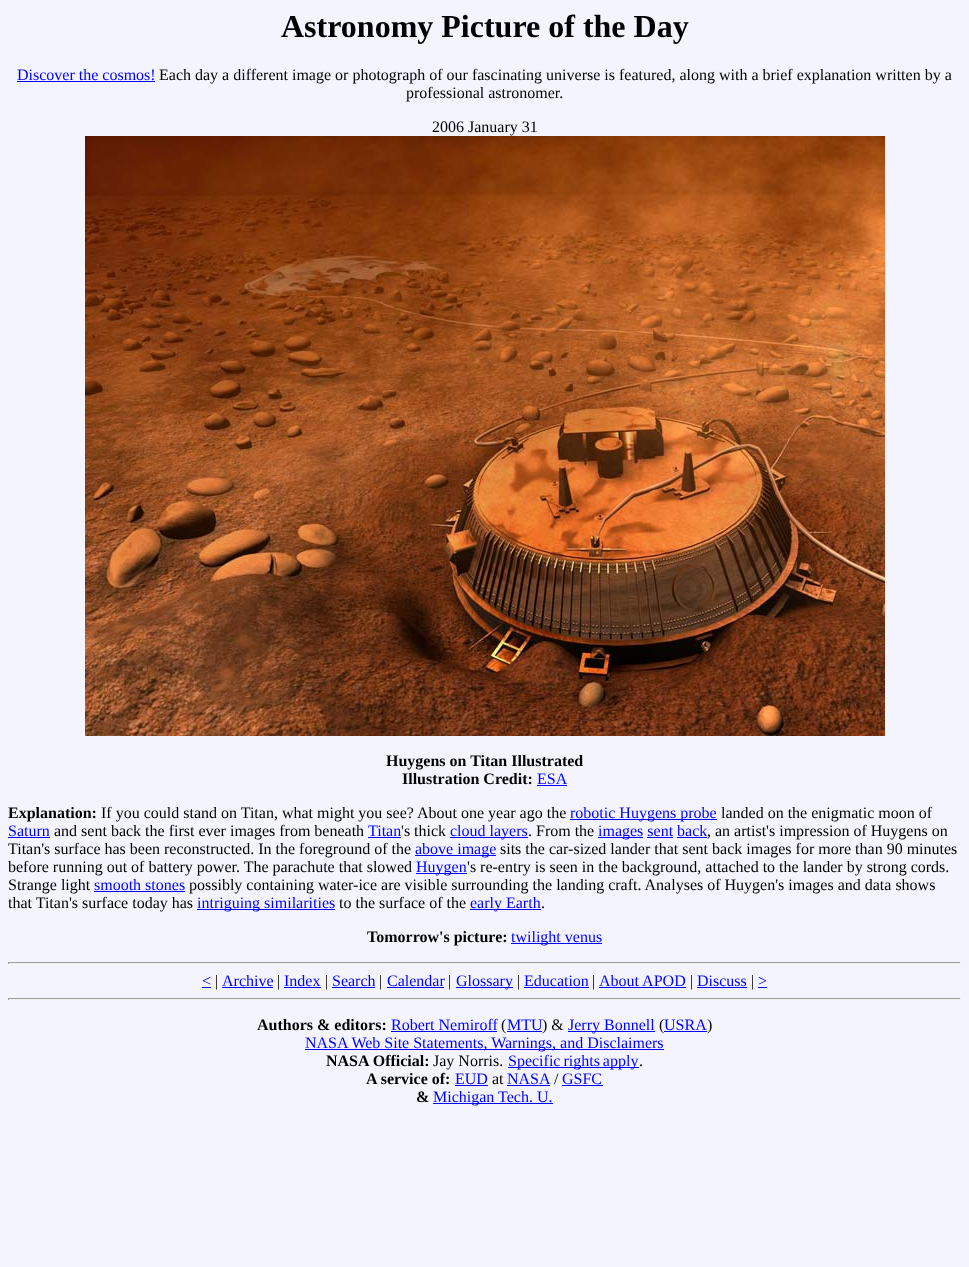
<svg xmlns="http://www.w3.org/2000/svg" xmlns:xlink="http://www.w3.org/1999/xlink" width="969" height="1267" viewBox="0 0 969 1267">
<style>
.cls-1{font:bold 32px Liberation Serif;fill:#000000}
.cls-2{font:16px Liberation Serif;fill:#0000ff}
.cls-3{font:16px Liberation Serif;fill:#000000}
.cls-4{font:bold 16px Liberation Serif;fill:#000000}
</style>
<rect width="100%" height="100%" fill="#f4f4ff"/>
<rect fill="#0000ff" x="17" y="81" width="138" height="1"/>
<image xlink:href="image0.png" x="85" y="136" width="800" height="600"/>
<rect fill="#0000ff" x="537" y="785" width="30" height="1"/>
<rect fill="#0000ff" x="570" y="819" width="147" height="1"/>
<rect fill="#0000ff" x="8" y="837" width="42" height="1"/>
<rect fill="#0000ff" x="368" y="837" width="33" height="1"/>
<rect fill="#0000ff" x="450" y="837" width="78" height="1"/>
<rect fill="#0000ff" x="598" y="837" width="45" height="1"/>
<rect fill="#0000ff" x="647" y="837" width="26" height="1"/>
<rect fill="#0000ff" x="677" y="837" width="30" height="1"/>
<rect fill="#0000ff" x="415" y="855" width="81" height="1"/>
<rect fill="#0000ff" x="416" y="873" width="51" height="1"/>
<rect fill="#0000ff" x="94" y="891" width="91" height="1"/>
<rect fill="#0000ff" x="197" y="909" width="138" height="1"/>
<rect fill="#0000ff" x="470" y="909" width="71" height="1"/>
<rect fill="#0000ff" x="511" y="943" width="91" height="1"/>
<rect fill="#9f9f9f" x="8" y="962" width="953" height="1"/>
<rect fill="#eeeeee" x="960" y="962" width="1" height="2"/>
<rect fill="#eeeeee" x="8" y="963" width="953" height="1"/>
<rect fill="#9f9f9f" x="8" y="962" width="1" height="2"/>
<rect fill="#0000ff" x="202" y="987" width="9" height="1"/>
<rect fill="#0000ff" x="222" y="987" width="51" height="1"/>
<rect fill="#0000ff" x="284" y="987" width="37" height="1"/>
<rect fill="#0000ff" x="332" y="987" width="43" height="1"/>
<rect fill="#0000ff" x="387" y="987" width="57" height="1"/>
<rect fill="#0000ff" x="456" y="987" width="57" height="1"/>
<rect fill="#0000ff" x="524" y="987" width="65" height="1"/>
<rect fill="#0000ff" x="599" y="987" width="87" height="1"/>
<rect fill="#0000ff" x="697" y="987" width="50" height="1"/>
<rect fill="#0000ff" x="758" y="987" width="9" height="1"/>
<rect fill="#9f9f9f" x="8" y="998" width="953" height="1"/>
<rect fill="#eeeeee" x="960" y="998" width="1" height="2"/>
<rect fill="#eeeeee" x="8" y="999" width="953" height="1"/>
<rect fill="#9f9f9f" x="8" y="998" width="1" height="2"/>
<rect fill="#0000ff" x="391" y="1031" width="106" height="1"/>
<rect fill="#0000ff" x="507" y="1031" width="35" height="1"/>
<rect fill="#0000ff" x="568" y="1031" width="87" height="1"/>
<rect fill="#0000ff" x="664" y="1031" width="43" height="1"/>
<rect fill="#0000ff" x="305" y="1049" width="359" height="1"/>
<rect fill="#0000ff" x="508" y="1067" width="131" height="1"/>
<rect fill="#0000ff" x="455" y="1085" width="33" height="1"/>
<rect fill="#0000ff" x="507" y="1085" width="43" height="1"/>
<rect fill="#0000ff" x="562" y="1085" width="41" height="1"/>
<rect fill="#0000ff" x="433" y="1103" width="120" height="1"/>
<text class="cls-1" x="281" y="37">Astronomy Picture of the Day</text>
<text class="cls-2" x="17" y="80">Discover the cosmos!</text>
<text class="cls-3" x="159" y="80">Each day a different image or photograph of our fascinating universe is featured, along with a brief explanation written by a</text>
<text class="cls-3" x="406" y="98">professional astronomer.</text>
<text class="cls-3" x="432" y="132">2006 January 31</text>
<text class="cls-4" x="386" y="766">Huygens on Titan Illustrated</text>
<text class="cls-4" x="402" y="784">Illustration Credit:</text>
<text class="cls-2" x="537" y="784">ESA</text>
<text class="cls-4" x="8" y="818">Explanation:</text>
<text class="cls-3" x="101" y="818">If you could stand on Titan, what might you see? About one year ago the</text>
<text class="cls-2" x="570" y="818">robotic Huygens probe</text>
<text class="cls-3" x="721" y="818">landed on the enigmatic moon of</text>
<text class="cls-2" x="8" y="836">Saturn</text>
<text class="cls-3" x="54" y="836">and sent back the first ever images from beneath</text>
<text class="cls-2" x="368" y="836">Titan</text>
<text class="cls-3" x="401" y="836">'s thick</text>
<text class="cls-2" x="450" y="836">cloud layers</text>
<text class="cls-3" x="528" y="836">. From the</text>
<text class="cls-2" x="598" y="836">images sent back</text>
<text class="cls-3" x="707" y="836">, an artist's impression of Huygens on</text>
<text class="cls-3" x="8" y="854">Titan's surface has been reconstructed. In the foreground of the</text>
<text class="cls-2" x="415" y="854">above image</text>
<text class="cls-3" x="500" y="854">sits the car-sized lander that sent back images for more than 90 minutes</text>
<text class="cls-3" x="8" y="872">before running out of battery power. The parachute that slowed</text>
<text class="cls-2" x="416" y="872">Huygen</text>
<text class="cls-3" x="467" y="872">'s re-entry is seen in the background, attached to the lander by strong cords.</text>
<text class="cls-3" x="8" y="890">Strange light</text>
<text class="cls-2" x="94" y="890">smooth stones</text>
<text class="cls-3" x="189" y="890">possibly containing water-ice are visible surrounding the landing craft. Analyses of Huygen's images and data shows</text>
<text class="cls-3" x="8" y="908">that Titan's surface today has</text>
<text class="cls-2" x="197" y="908">intriguing similarities</text>
<text class="cls-3" x="339" y="908">to the surface of the</text>
<text class="cls-2" x="470" y="908">early Earth</text>
<text class="cls-3" x="541" y="908">.</text>
<text class="cls-4" x="367" y="942">Tomorrow's picture:</text>
<text class="cls-2" x="511" y="942">twilight venus</text>
<text class="cls-2" x="202" y="986">&lt;</text>
<text class="cls-3" x="215" y="986">|</text>
<text class="cls-2" x="222" y="986">Archive</text>
<text class="cls-3" x="277" y="986">|</text>
<text class="cls-2" x="284" y="986">Index</text>
<text class="cls-3" x="325" y="986">|</text>
<text class="cls-2" x="332" y="986">Search</text>
<text class="cls-3" x="379" y="986">|</text>
<text class="cls-2" x="387" y="986">Calendar</text>
<text class="cls-3" x="448" y="986">|</text>
<text class="cls-2" x="456" y="986">Glossary</text>
<text class="cls-3" x="517" y="986">|</text>
<text class="cls-2" x="524" y="986">Education</text>
<text class="cls-3" x="592" y="986">|</text>
<text class="cls-2" x="599" y="986">About APOD</text>
<text class="cls-3" x="690" y="986">|</text>
<text class="cls-2" x="697" y="986">Discuss</text>
<text class="cls-3" x="751" y="986">|</text>
<text class="cls-2" x="758" y="986">&gt;</text>
<text class="cls-4" x="257" y="1030">Authors &amp; editors:</text>
<text class="cls-2" x="391" y="1030">Robert Nemiroff</text>
<text class="cls-3" x="501" y="1030">(</text>
<text class="cls-2" x="507" y="1030">MTU</text>
<text class="cls-3" x="542" y="1030">) &amp;</text>
<text class="cls-2" x="568" y="1030">Jerry Bonnell</text>
<text class="cls-3" x="659" y="1030">(</text>
<text class="cls-2" x="664" y="1030">USRA</text>
<text class="cls-3" x="707" y="1030">)</text>
<text class="cls-2" x="305" y="1048">NASA Web Site Statements, Warnings, and Disclaimers</text>
<text class="cls-4" x="326" y="1066">NASA Official:</text>
<text class="cls-3" x="433" y="1066">Jay Norris.</text>
<text class="cls-2" x="508" y="1066" word-spacing="-1">Specific rights apply</text>
<text class="cls-3" x="639" y="1066">.</text>
<text class="cls-4" x="366" y="1084">A service of:</text>
<text class="cls-2" x="455" y="1084">EUD</text>
<text class="cls-3" x="492" y="1084">at</text>
<text class="cls-2" x="507" y="1084">NASA</text>
<text class="cls-3" x="554" y="1084">/</text>
<text class="cls-2" x="562" y="1084">GSFC</text>
<text class="cls-4" x="416" y="1102">&amp;</text>
<text class="cls-2" x="433" y="1102">Michigan Tech. U.</text>
</svg>
